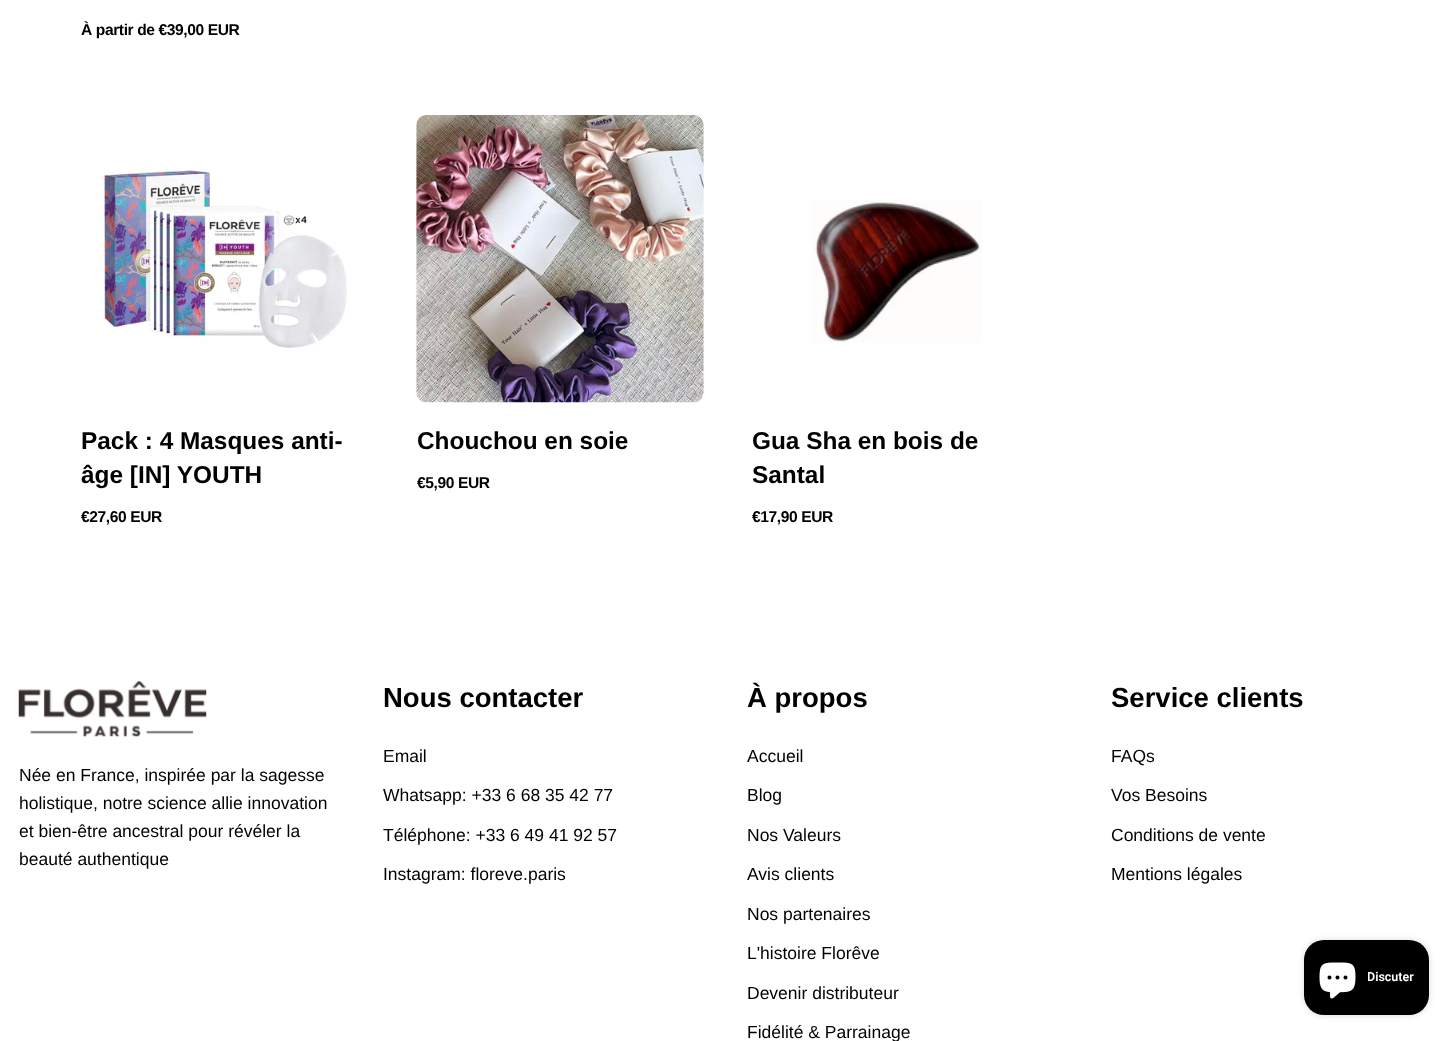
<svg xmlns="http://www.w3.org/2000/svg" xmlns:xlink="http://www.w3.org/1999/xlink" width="1456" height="1041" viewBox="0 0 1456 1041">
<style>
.cls-1{font:bold 15.6px Liberation Sans;letter-spacing:-0.4px;fill:#000000}
.cls-2{font:bold 24.4px Liberation Sans;fill:#000000}
.cls-3{font:17.5px Liberation Sans;fill:#000000}
.cls-4{font:bold 27.5px Liberation Sans;fill:#000000}
.cls-5{font:600 12.5px Roboto;fill:#ffffff}
</style>
<defs>
<clipPath id="clip1"><rect x="1368" y="959" width="46" height="37"/></clipPath>
</defs>
<rect width="100%" height="100%" fill="#ffffff"/>
<image xlink:href="image0.png" x="100" y="169" width="247" height="179"/>
<image xlink:href="image1.png" x="416" y="115" width="288" height="288"/>
<image xlink:href="image2.png" x="811" y="200" width="171" height="143"/>
<image xlink:href="image3.png" x="18" y="681" width="189" height="56"/>
<rect fill="#000000" fill-opacity="0.15" filter="blur(3px)" x="1304" y="940" width="125" height="75" rx="20"/>
<rect fill="#000000" x="1304" y="940" width="125" height="75" rx="20"/>
<image xlink:href="image4.png" x="1319" y="962" width="37" height="37"/>
<text class="cls-1" x="81" y="35">À partir de €39,00 EUR</text>
<text class="cls-2"><tspan x="81" y="449">Pack : 4 Masques anti-</tspan><tspan x="81" y="483">âge [IN] YOUTH</tspan></text>
<text class="cls-1" x="81" y="522">€27,60 EUR</text>
<text class="cls-2" x="417" y="449">Chouchou en soie</text>
<text class="cls-1" x="417" y="488">€5,90 EUR</text>
<text class="cls-2"><tspan x="752" y="449">Gua Sha en bois de</tspan><tspan x="752" y="483">Santal</tspan></text>
<text class="cls-1" x="752" y="522">€17,90 EUR</text>
<text class="cls-3"><tspan x="19" y="781">Née en France, inspirée par la sagesse</tspan><tspan x="19" y="809">holistique, notre science allie innovation</tspan><tspan x="19" y="837">et bien-être ancestral pour révéler la</tspan><tspan x="19" y="865">beauté authentique</tspan></text>
<text class="cls-4" x="383" y="707">Nous contacter</text>
<text class="cls-3" x="383" y="762">Email</text>
<text class="cls-3" x="383" y="801">Whatsapp: +33 6 68 35 42 77</text>
<text class="cls-3" x="383" y="841">Téléphone: +33 6 49 41 92 57</text>
<text class="cls-3" x="383" y="880">Instagram: floreve.paris</text>
<text class="cls-4" x="747" y="707">À propos</text>
<text class="cls-3" x="747" y="762">Accueil</text>
<text class="cls-3" x="747" y="801">Blog</text>
<text class="cls-3" x="747" y="841">Nos Valeurs</text>
<text class="cls-3" x="747" y="880">Avis clients</text>
<text class="cls-3" x="747" y="920">Nos partenaires</text>
<text class="cls-3" x="747" y="959">L'histoire Florêve</text>
<text class="cls-3" x="747" y="999">Devenir distributeur</text>
<text class="cls-3" x="747" y="1038">Fidélité &amp; Parrainage</text>
<text class="cls-4" x="1111" y="707">Service clients</text>
<text class="cls-3" x="1111" y="762">FAQs</text>
<text class="cls-3" x="1111" y="801">Vos Besoins</text>
<text class="cls-3" x="1111" y="841">Conditions de vente</text>
<text class="cls-3" x="1111" y="880">Mentions légales</text>
<g clip-path="url(#clip1)">
<text class="cls-5" x="1367" y="981">Discuter</text>
</g>
</svg>
